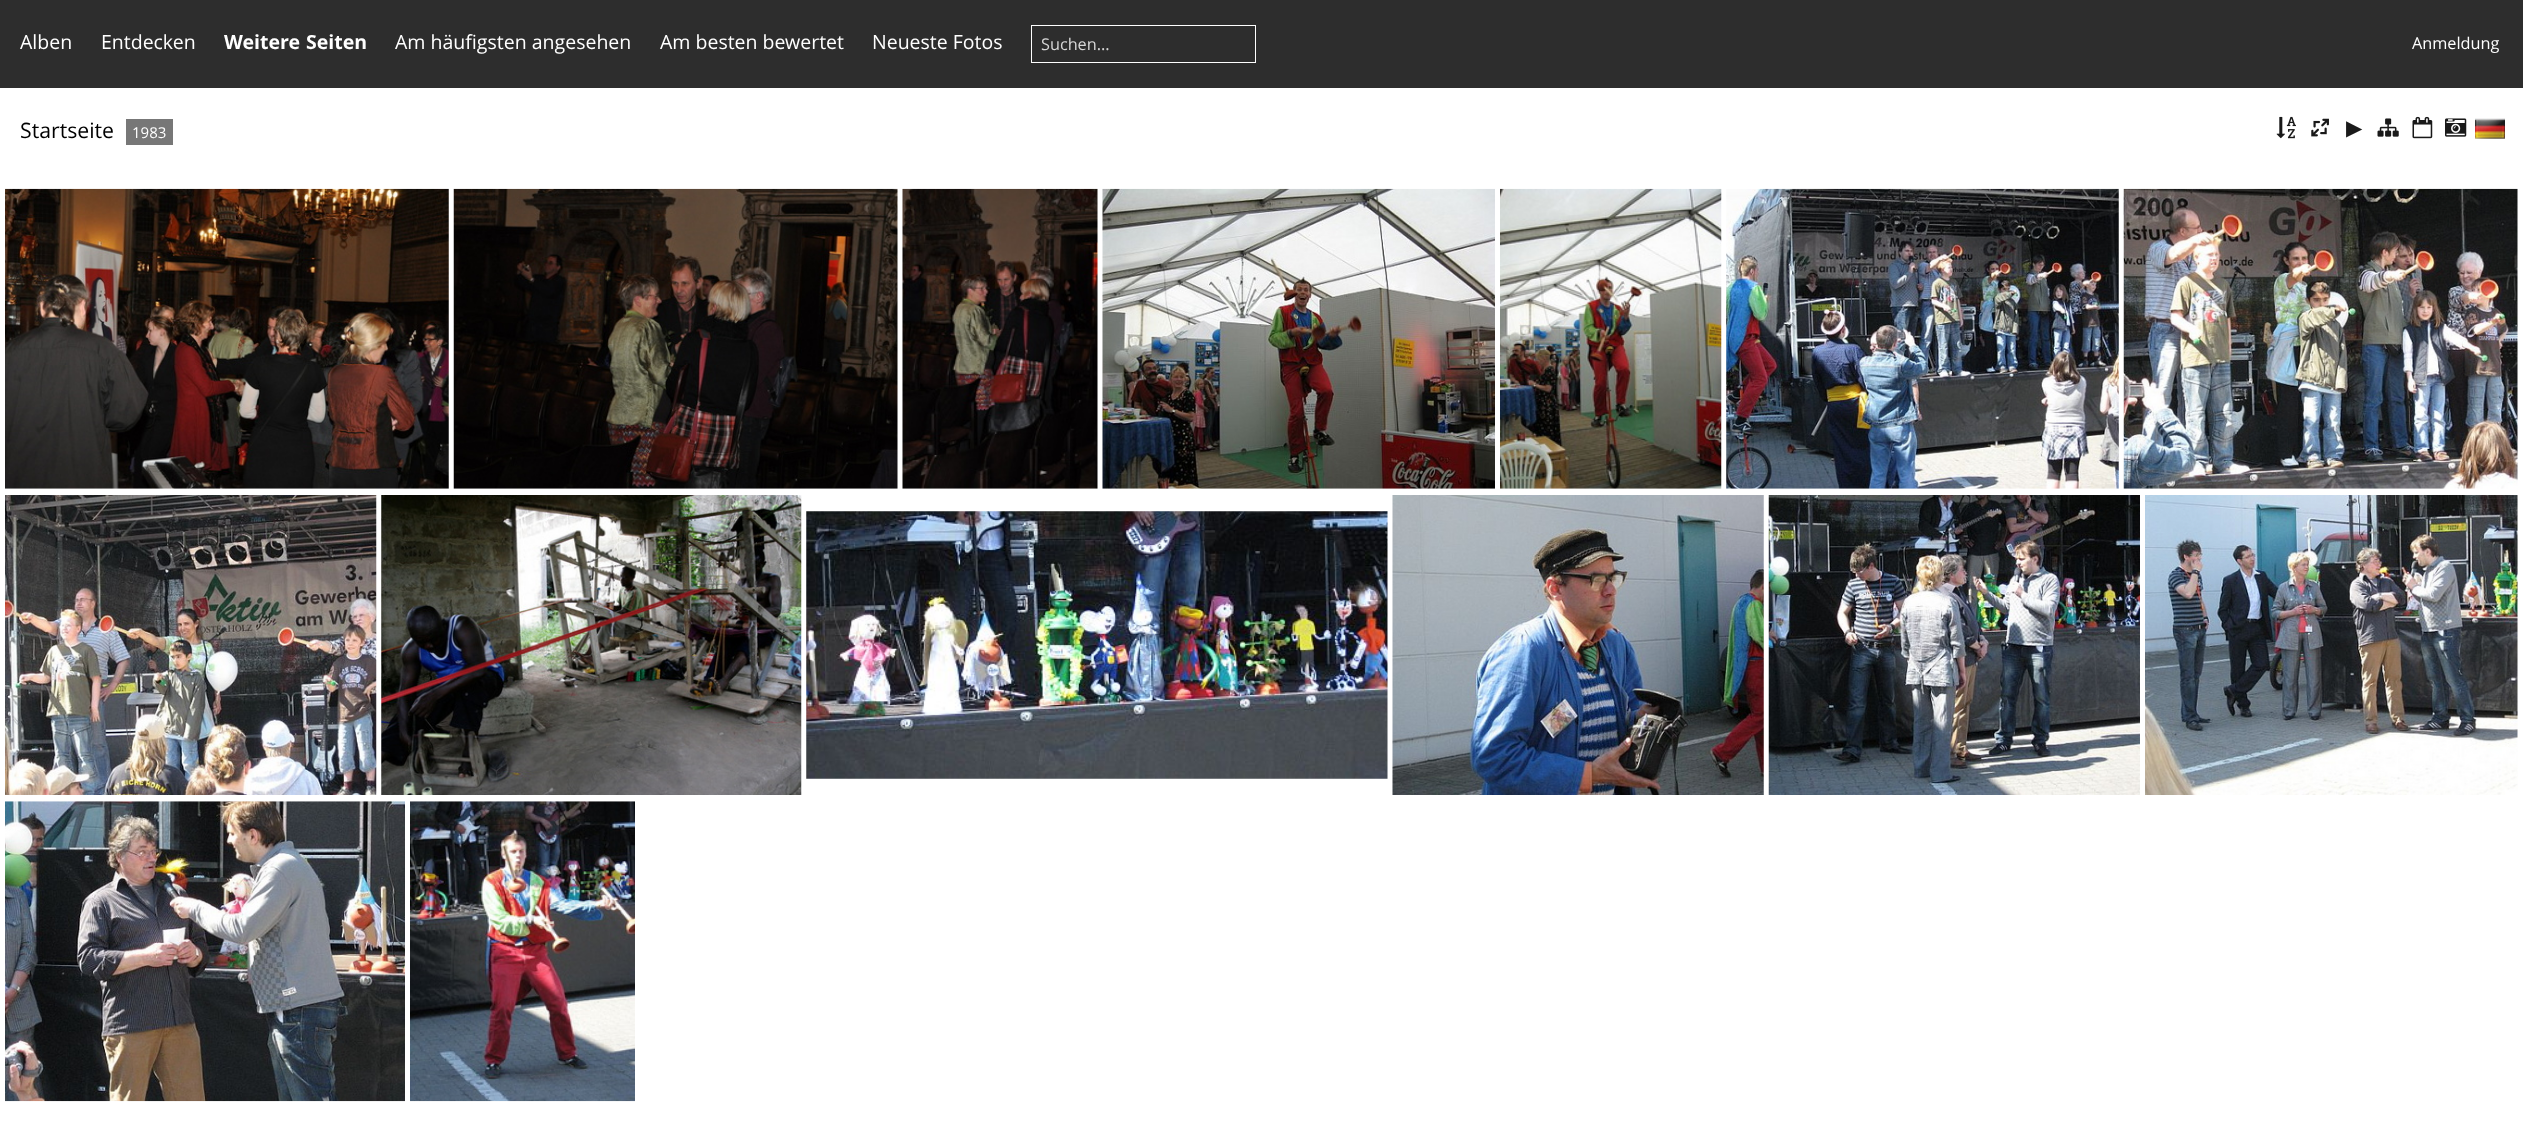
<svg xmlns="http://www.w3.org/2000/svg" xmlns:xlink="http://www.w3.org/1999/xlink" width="2523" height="1132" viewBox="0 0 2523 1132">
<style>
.cls-1{font:19.5px Open Sans;fill:#ffffff}
.cls-2{font:bold 19.5px Open Sans;fill:#ffffff}
.cls-3{font:16.25px Open Sans;fill:#d6d6d6}
.cls-4{font:16.25px Open Sans;fill:#ffffff}
.cls-5{font:21.25px Open Sans;fill:#000000}
.cls-6{font:15px Open Sans;fill:#ffffff}
.cls-7{font:21.25px DejaVu Sans;fill:#1a1a1a}
</style>
<rect width="100%" height="100%" fill="#ffffff"/>
<rect fill="#2d2d2d" x="0" y="0" width="2523" height="88"/>
<rect fill="none" stroke="#ffffff" x="1031.5" y="25.5" width="224" height="37"/>
<rect fill="#777777" x="126" y="119" width="47" height="26"/>
<image xlink:href="image0.png" x="2276" y="116" width="20" height="23"/>
<image xlink:href="image1.png" x="2311" y="118" width="18" height="19"/>
<image xlink:href="image2.png" x="2377" y="118" width="22" height="19"/>
<image xlink:href="image3.png" x="2412" y="116" width="21" height="23"/>
<image xlink:href="image4.png" x="2445" y="118" width="22" height="19"/>
<image xlink:href="image5.png" x="2475" y="118" width="30" height="21"/>
<image xlink:href="image6.png" x="5" y="188" width="444" height="301"/>
<image xlink:href="image7.png" x="453" y="188" width="445" height="301"/>
<image xlink:href="image8.png" x="902" y="188" width="196" height="301"/>
<image xlink:href="image9.png" x="1102" y="188" width="393" height="301"/>
<image xlink:href="image10.png" x="1500" y="188" width="222" height="301"/>
<image xlink:href="image11.png" x="1726" y="188" width="393" height="301"/>
<image xlink:href="image12.png" x="2123" y="188" width="395" height="301"/>
<image xlink:href="image13.png" x="5" y="495" width="372" height="300"/>
<image xlink:href="image14.png" x="381" y="495" width="421" height="300"/>
<image xlink:href="image15.png" x="806" y="511" width="582" height="268"/>
<image xlink:href="image16.png" x="1392" y="495" width="372" height="300"/>
<image xlink:href="image17.png" x="1768" y="495" width="372" height="300"/>
<image xlink:href="image18.png" x="2145" y="495" width="373" height="300"/>
<image xlink:href="image19.png" x="5" y="801" width="400" height="301"/>
<image xlink:href="image20.png" x="410" y="801" width="225" height="301"/>
<text class="cls-1" x="20" y="49">Alben</text>
<text class="cls-1" x="101" y="49">Entdecken</text>
<text class="cls-2" x="224" y="49" word-spacing="1">Weitere Seiten</text>
<text class="cls-1" x="395" y="49">Am häufigsten angesehen</text>
<text class="cls-1" x="660" y="49">Am besten bewertet</text>
<text class="cls-1" x="872" y="49">Neueste Fotos</text>
<text class="cls-3" x="1041" y="50">Suchen...</text>
<text class="cls-4" x="2412" y="49">Anmeldung</text>
<text class="cls-5" x="20" y="138">Startseite</text>
<text class="cls-6" x="132" y="138">1983</text>
<text class="cls-7" x="2346" y="135">▶</text>
</svg>
